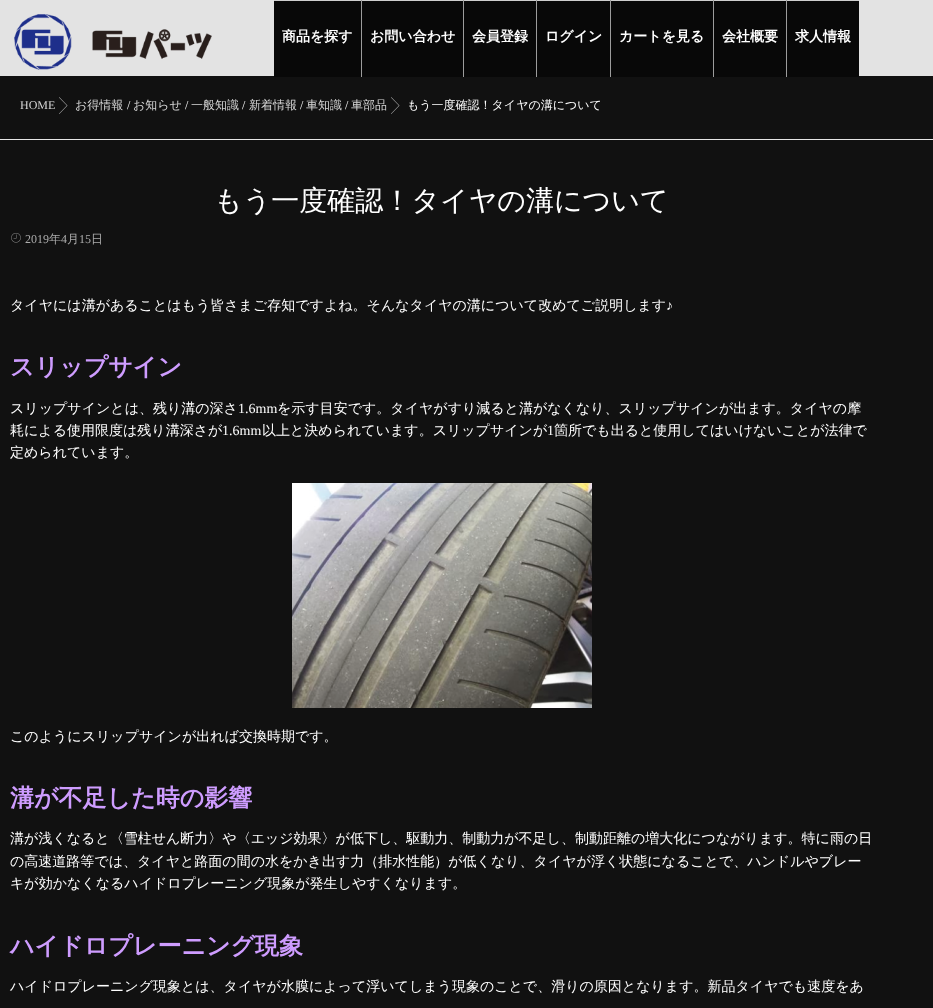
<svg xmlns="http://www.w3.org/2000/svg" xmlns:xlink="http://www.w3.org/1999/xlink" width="933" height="1008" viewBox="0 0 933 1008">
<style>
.cls-1{font:bold 14px WenQuanYi Zen Hei;fill:#ffffff}
.cls-2{font:12px Liberation Serif;fill:#d7d7d7}
.cls-3{font:500 12px WenQuanYi Zen Hei;fill:#d7d7d7}
.cls-4{font:12px Liberation Serif;fill:#ffffff}
.cls-5{font:500 12px WenQuanYi Zen Hei;fill:#ffffff}
.cls-6{font:500 28px WenQuanYi Zen Hei;fill:#ffffff}
.cls-7{font:12px Liberation Serif;fill:#adadad}
.cls-8{font:500 12px WenQuanYi Zen Hei;fill:#adadad}
.cls-9{font:500 14px WenQuanYi Zen Hei;fill:#ffffff}
.cls-10{font:14px Liberation Serif;fill:#ffffff}
.cls-11{font:bold 24px WenQuanYi Zen Hei;fill:#ce9cff}
</style>
<rect width="100%" height="100%" fill="#111111"/>
<rect fill="#e3e3e3" x="0" y="0" width="933" height="76"/>
<image xlink:href="image0.png" x="14" y="14" width="198" height="56"/>
<rect fill="#080808" x="274" y="1" width="87" height="76"/>
<rect fill="#9c9c9c" x="361" y="0" width="1" height="77"/>
<rect fill="#cecece" x="274" y="0" width="87" height="1"/>
<rect fill="#080808" x="362" y="1" width="101" height="76"/>
<rect fill="#9c9c9c" x="463" y="0" width="1" height="77"/>
<rect fill="#cecece" x="362" y="0" width="101" height="1"/>
<rect fill="#080808" x="464" y="1" width="72" height="76"/>
<rect fill="#9c9c9c" x="536" y="0" width="1" height="77"/>
<rect fill="#cecece" x="464" y="0" width="72" height="1"/>
<rect fill="#080808" x="537" y="1" width="73" height="76"/>
<rect fill="#9c9c9c" x="610" y="0" width="1" height="77"/>
<rect fill="#cecece" x="537" y="0" width="73" height="1"/>
<rect fill="#080808" x="611" y="1" width="102" height="76"/>
<rect fill="#9c9c9c" x="713" y="0" width="1" height="77"/>
<rect fill="#cecece" x="611" y="0" width="102" height="1"/>
<rect fill="#080808" x="714" y="1" width="72" height="76"/>
<rect fill="#9c9c9c" x="786" y="0" width="1" height="77"/>
<rect fill="#cecece" x="714" y="0" width="72" height="1"/>
<rect fill="#080808" x="787" y="1" width="72" height="76"/>
<rect fill="#cecece" x="787" y="0" width="72" height="1"/>
<rect fill="#e6e6e6" x="0" y="139" width="933" height="1"/>
<image xlink:href="image1.png" x="59" y="97" width="9" height="17"/>
<image xlink:href="image1.png" x="391" y="97" width="9" height="17"/>
<image xlink:href="image2.png" x="11" y="233" width="10" height="10"/>
<image xlink:href="image3.png" x="292" y="483" width="300" height="225"/>
<text class="cls-1" x="282" y="41">商品を探す</text>
<text class="cls-1" x="370" y="41">お問い合わせ</text>
<text class="cls-1" x="472" y="41">会員登録</text>
<text class="cls-1" x="545" y="41">ログイン</text>
<text class="cls-1" x="619" y="41">カートを見る</text>
<text class="cls-1" x="722" y="41">会社概要</text>
<text class="cls-1" x="795" y="41">求人情報</text>
<text class="cls-2" x="20" y="109">HOME</text>
<text class="cls-3" x="75" y="109">お得情報</text>
<text class="cls-4" x="127" y="109">/</text>
<text class="cls-3" x="133" y="109">お知らせ</text>
<text class="cls-4" x="185" y="109">/</text>
<text class="cls-3" x="191" y="109">一般知識</text>
<text class="cls-4" x="242" y="109">/</text>
<text class="cls-3" x="249" y="109">新着情報</text>
<text class="cls-4" x="300" y="109">/</text>
<text class="cls-3" x="306" y="109">車知識</text>
<text class="cls-4" x="345" y="109">/</text>
<text class="cls-3" x="351" y="109">車部品</text>
<text class="cls-5" x="407" y="109">もう一度確認！タイヤの溝について</text>
<text class="cls-6" x="214" y="210">もう一度確認！タイヤの溝について</text>
<text class="cls-7" x="25" y="243">2019</text>
<text class="cls-8" x="49" y="243">年</text>
<text class="cls-7" x="61" y="243">4</text>
<text class="cls-8" x="67" y="243">月</text>
<text class="cls-7" x="79" y="243">15</text>
<text class="cls-8" x="91" y="243">日</text>
<text class="cls-9" x="10" y="310">タイヤには溝があることはもう皆さまご存知ですよね。そんなタイヤの溝について改めてご説明します</text>
<text class="cls-10" x="666" y="310">♪</text>
<text class="cls-11" x="10" y="375">スリップサイン</text>
<text class="cls-9" x="10" y="413">スリップサインとは、残り溝の深さ</text>
<text class="cls-10" x="238" y="413">1.6mm</text>
<text class="cls-9" x="277" y="413">を示す目安です。タイヤがすり減ると溝がなくなり、スリップサインが出ます。タイヤの摩</text>
<text class="cls-9" x="10" y="435">耗による使用限度は残り溝深さが</text>
<text class="cls-10" x="222" y="435">1.6mm</text>
<text class="cls-9" x="262" y="435">以上と決められています。スリップサインが</text>
<text class="cls-10" x="547" y="435">1</text>
<text class="cls-9" x="554" y="435">箇所でも出ると使用してはいけないことが法律で</text>
<text class="cls-9" x="10" y="457">定められています。</text>
<text class="cls-9" x="10" y="741">このようにスリップサインが出れば交換時期です。</text>
<text class="cls-11" x="10" y="806">溝が不足した時の影響</text>
<text class="cls-9"><tspan x="10" y="843">溝が浅くなると〈雪柱せん断力〉や〈エッジ効果〉が低下し、駆動力、制動力が不足し、制動距離の増大化につながります。特に雨の日</tspan><tspan x="10" y="866">の高速道路等では、タイヤと路面の間の水をかき出す力（排水性能）が低くなり、タイヤが浮く状態になることで、ハンドルやブレー</tspan><tspan x="10" y="888">キが効かなくなるハイドロプレーニング現象が発生しやすくなります。</tspan></text>
<text class="cls-11" x="10" y="954">ハイドロプレーニング現象</text>
<text class="cls-9" x="10" y="991">ハイドロプレーニング現象とは、タイヤが水膜によって浮いてしまう現象のことで、滑りの原因となります。新品タイヤでも速度をあ</text>
</svg>
